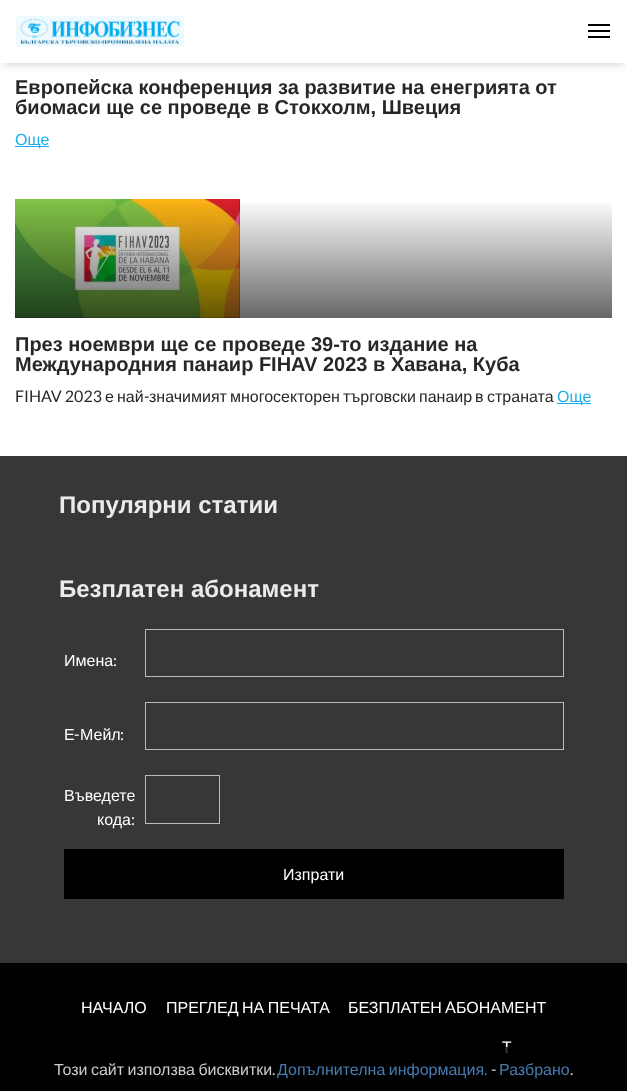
<svg xmlns="http://www.w3.org/2000/svg" xmlns:xlink="http://www.w3.org/1999/xlink" width="627" height="1091" viewBox="0 0 627 1091">
<style>
.cls-1{font:bold 20px Arimo;fill:#272727}
.cls-2{font:16px Liberation Sans;fill:#1cafec}
.cls-3{font:16px Lato;fill:#272727}
.cls-4{font:16px Liberation Sans;fill:#272727}
.cls-5{font:bold 24px Arimo;fill:#ebebeb}
.cls-6{font:16px Liberation Sans;fill:#ffffff}
.cls-7{font:16px Lato;fill:#ffffff}
.cls-8{font:16px Liberation Sans;fill:#cccccc}
.cls-9{font:16px Liberation Sans;fill:#467cb1}
.cls-10{font:16px Lato;fill:#cccccc}
.cls-11{font:16px Lato;fill:#467cb1}
</style>
<defs>
<linearGradient id="g1" gradientUnits="userSpaceOnUse" x1="314" y1="199" x2="314" y2="318"><stop offset="0" stop-color="#000000" stop-opacity="0"/><stop offset="1" stop-color="#000000" stop-opacity="0.6"/></linearGradient>
</defs>
<rect width="100%" height="100%" fill="#ffffff"/>
<rect fill="#000000" fill-opacity="0.2" filter="blur(4.5px)" x="4" y="9" width="619" height="55"/>
<rect fill="#ffffff" x="0" y="2" width="627" height="61"/>
<image xlink:href="image0.png" x="16" y="16" width="168" height="31"/>
<rect fill="#000000" x="588" y="24" width="22" height="2"/>
<rect fill="#000000" x="588" y="30" width="22" height="2"/>
<rect fill="#000000" x="588" y="36" width="22" height="2"/>
<rect fill="#1cafec" x="15" y="146" width="34" height="1"/>
<image xlink:href="image1.png" x="15" y="199" width="225" height="119"/>
<rect fill="url(#g1)" x="15" y="203" width="597" height="115"/>
<rect fill="#1cafec" x="557" y="403" width="34" height="1"/>
<rect fill="#373737" x="0" y="456" width="627" height="507"/>
<rect fill="none" stroke="#bbbbbb" x="145.5" y="629.5" width="418" height="47"/>
<rect fill="none" stroke="#bbbbbb" x="145.5" y="702.5" width="418" height="47"/>
<rect fill="none" stroke="#bbbbbb" x="145.5" y="775.5" width="74" height="48"/>
<rect fill="#000000" x="64" y="849" width="500" height="50"/>
<rect fill="#000000" x="0" y="963" width="627" height="128"/>
<text class="cls-1"><tspan x="15" y="94">Европейска конференция за развитие на енегрията от</tspan><tspan x="15" y="114">биомаси ще се проведе в Стокхолм, Швеция</tspan></text>
<text class="cls-2" x="15" y="145">Още</text>
<text class="cls-1"><tspan x="15" y="351">През ноември ще се проведе 39-то издание на</tspan><tspan x="15" y="371">Международния панаир FIHAV 2023 в Хавана, Куба</tspan></text>
<text class="cls-3" x="15" y="402">FIHAV 2023</text>
<text class="cls-4" x="105" y="402">е</text>
<text class="cls-4" x="117" y="402">най</text>
<text class="cls-3" x="144" y="402">-</text>
<text class="cls-4" x="149" y="402">значимият</text>
<text class="cls-4" x="230" y="402">многосекторен</text>
<text class="cls-4" x="343" y="402">търговски</text>
<text class="cls-4" x="419" y="402">панаир</text>
<text class="cls-4" x="475" y="402">в</text>
<text class="cls-4" x="487" y="402">страната</text>
<text class="cls-2" x="557" y="402">Още</text>
<text class="cls-5" x="59" y="513">Популярни статии</text>
<text class="cls-5" x="59" y="597">Безплатен абонамент</text>
<text class="cls-6" x="64" y="666">Имена</text>
<text class="cls-7" x="113" y="666">:</text>
<text class="cls-6" x="64" y="740">Е</text>
<text class="cls-7" x="74" y="740">-</text>
<text class="cls-6" x="80" y="740">Мейл</text>
<text class="cls-7" x="120" y="740">:</text>
<text class="cls-6" x="64" y="801">Въведете</text>
<text class="cls-6" x="97" y="825">кода</text>
<text class="cls-7" x="131" y="825">:</text>
<text class="cls-6" x="283" y="880">Изпрати</text>
<text class="cls-6" x="81" y="1013">НАЧАЛО</text>
<text class="cls-6" x="166" y="1013" word-spacing="-1">ПРЕГЛЕД НА ПЕЧАТА</text>
<text class="cls-6" x="348" y="1013">БЕЗПЛАТЕН</text>
<text class="cls-7" x="445" y="1013">A</text>
<text class="cls-6" x="456" y="1013">БОНАМЕНТ</text>
<text class="cls-7" x="502" y="1053">T</text>
<rect fill="#000000" fill-opacity="0.8" x="506" y="1047" width="2" height="6"/>
<text class="cls-8" x="54" y="1075" word-spacing="-1">Този сайт използва бисквитки</text>
<text class="cls-9" x="277" y="1075" word-spacing="-1">Допълнителна информация</text>
<text class="cls-10" x="491" y="1075">-</text>
<text class="cls-9" x="499" y="1075">Разбрано</text>
<text class="cls-10" x="272" y="1075">.</text>
<text class="cls-11" x="484" y="1075">.</text>
<text class="cls-10" x="570" y="1075">.</text>
</svg>
